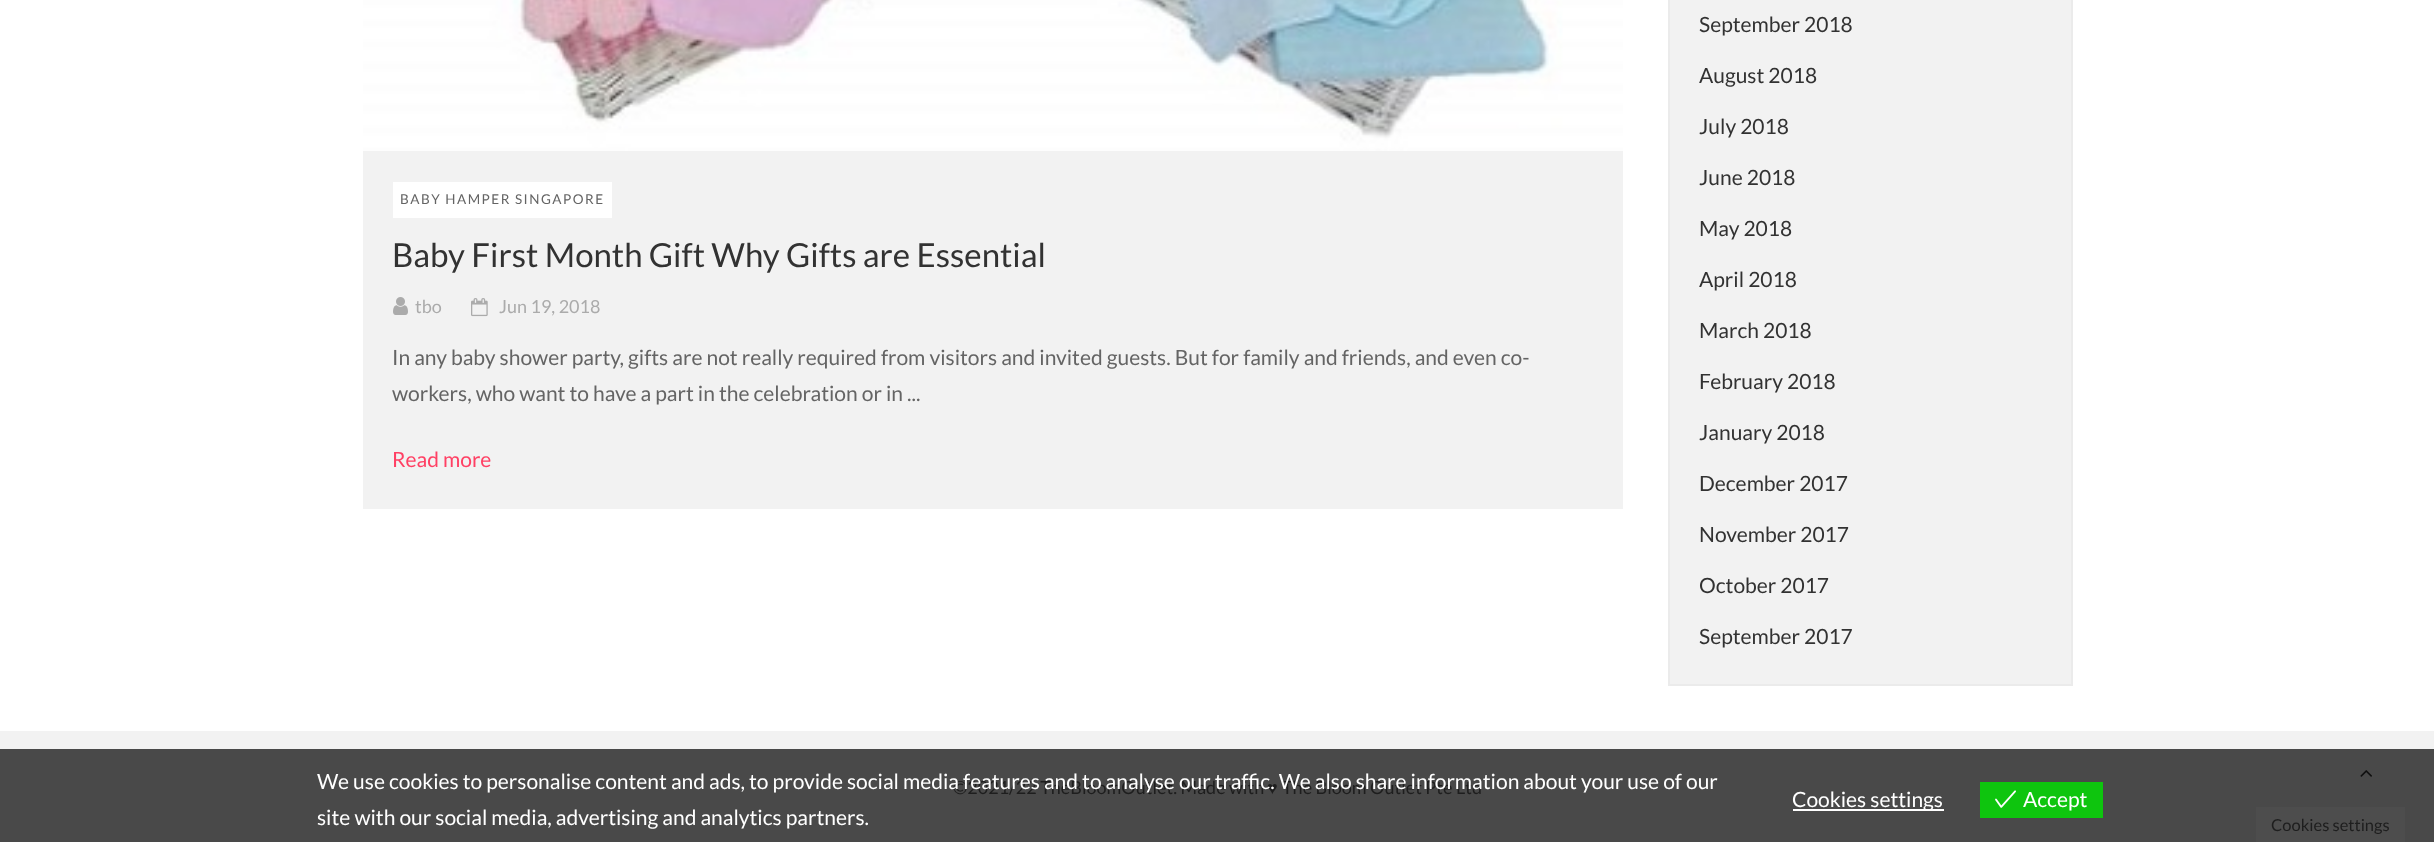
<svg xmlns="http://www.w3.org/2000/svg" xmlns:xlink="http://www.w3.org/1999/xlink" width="2434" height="842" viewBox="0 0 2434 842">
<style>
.cls-1{font:13.5px Lato;letter-spacing:1.5px;fill:#646464}
.cls-2{font:33px Lato;fill:#323232}
.cls-3{font:18px Lato;fill:#ababab}
.cls-4{font:21px Lato;fill:#646464}
.cls-5{font:21px Lato;fill:#ff4064}
.cls-6{font:21px Lato;fill:#323232}
.cls-7{font:18px Lato;fill:#1e1e1e}
.cls-8{font:18px Liberation Sans;fill:#1e1e1e}
.cls-9{font:21px Lato;fill:#ffffff}
.cls-10{font:16.5px Lato;fill:#1e1e1e}
</style>
<rect width="100%" height="100%" fill="#ffffff"/>
<rect fill="#f2f2f2" x="363" y="151" width="1260" height="358"/>
<image xlink:href="image0.png" x="363" y="0" width="1260" height="151"/>
<rect fill="#ffffff" x="393" y="182" width="219" height="36"/>
<image xlink:href="image1.png" x="393" y="297" width="15" height="18"/>
<image xlink:href="image2.png" x="471" y="298" width="17" height="19"/>
<rect fill="#f2f2f2" stroke="#ebebeb" stroke-width="2" x="1669" y="-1" width="403" height="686"/>
<rect fill="#494949" x="0" y="749" width="2434" height="93"/>
<image xlink:href="image3.png" x="2360" y="770" width="12" height="7"/>
<rect fill="#f2f2f2" x="0" y="731" width="2434" height="18"/>
<rect fill="#ffffff" x="1793" y="809" width="151" height="2"/>
<rect fill="#0ec50e" x="1980" y="782" width="123" height="36"/>
<image xlink:href="image4.png" x="1995" y="790" width="21" height="18"/>
<rect fill="#4d4d4d" x="2256" y="807" width="149" height="35"/>
<text class="cls-1" x="400" y="204">BABY HAMPER SINGAPORE</text>
<text class="cls-2" x="392" y="267">Baby First Month Gift Why Gifts are Essential</text>
<text class="cls-3" x="415" y="313">tbo</text>
<text class="cls-3" x="499" y="313">Jun 19, 2018</text>
<text class="cls-4"><tspan x="392" y="365">In any baby shower party, gifts are not really required from visitors and invited guests. But for family and friends, and even co-</tspan><tspan x="392" y="401">workers, who want to have a part in the celebration or in ...</tspan></text>
<text class="cls-5" x="392" y="467">Read more</text>
<text class="cls-6" x="1699" y="32">September 2018</text>
<text class="cls-6" x="1699" y="83">August 2018</text>
<text class="cls-6" x="1699" y="134">July 2018</text>
<text class="cls-6" x="1699" y="185">June 2018</text>
<text class="cls-6" x="1699" y="236">May 2018</text>
<text class="cls-6" x="1699" y="287">April 2018</text>
<text class="cls-6" x="1699" y="338">March 2018</text>
<text class="cls-6" x="1699" y="389">February 2018</text>
<text class="cls-6" x="1699" y="440">January 2018</text>
<text class="cls-6" x="1699" y="491">December 2017</text>
<text class="cls-6" x="1699" y="542">November 2017</text>
<text class="cls-6" x="1699" y="593">October 2017</text>
<text class="cls-6" x="1699" y="644">September 2017</text>
<text class="cls-7" x="953" y="794">©2021/22 TheBloomOutlet. Made with</text>
<text class="cls-8" x="1267" y="794">♥</text>
<text class="cls-7" x="1282" y="794">The Bloom Outlet Pte Ltd</text>
<text class="cls-9"><tspan x="317" y="789">We use cookies to personalise content and ads, to provide social media features and to analyse our traffic. We also share information about your use of our</tspan><tspan x="317" y="825">site with our social media, advertising and analytics partners.</tspan></text>
<text class="cls-9" x="1792" y="807">Cookies settings</text>
<text class="cls-9" x="2023" y="807">Accept</text>
<text class="cls-10" x="2271" y="831">Cookies settings</text>
</svg>
